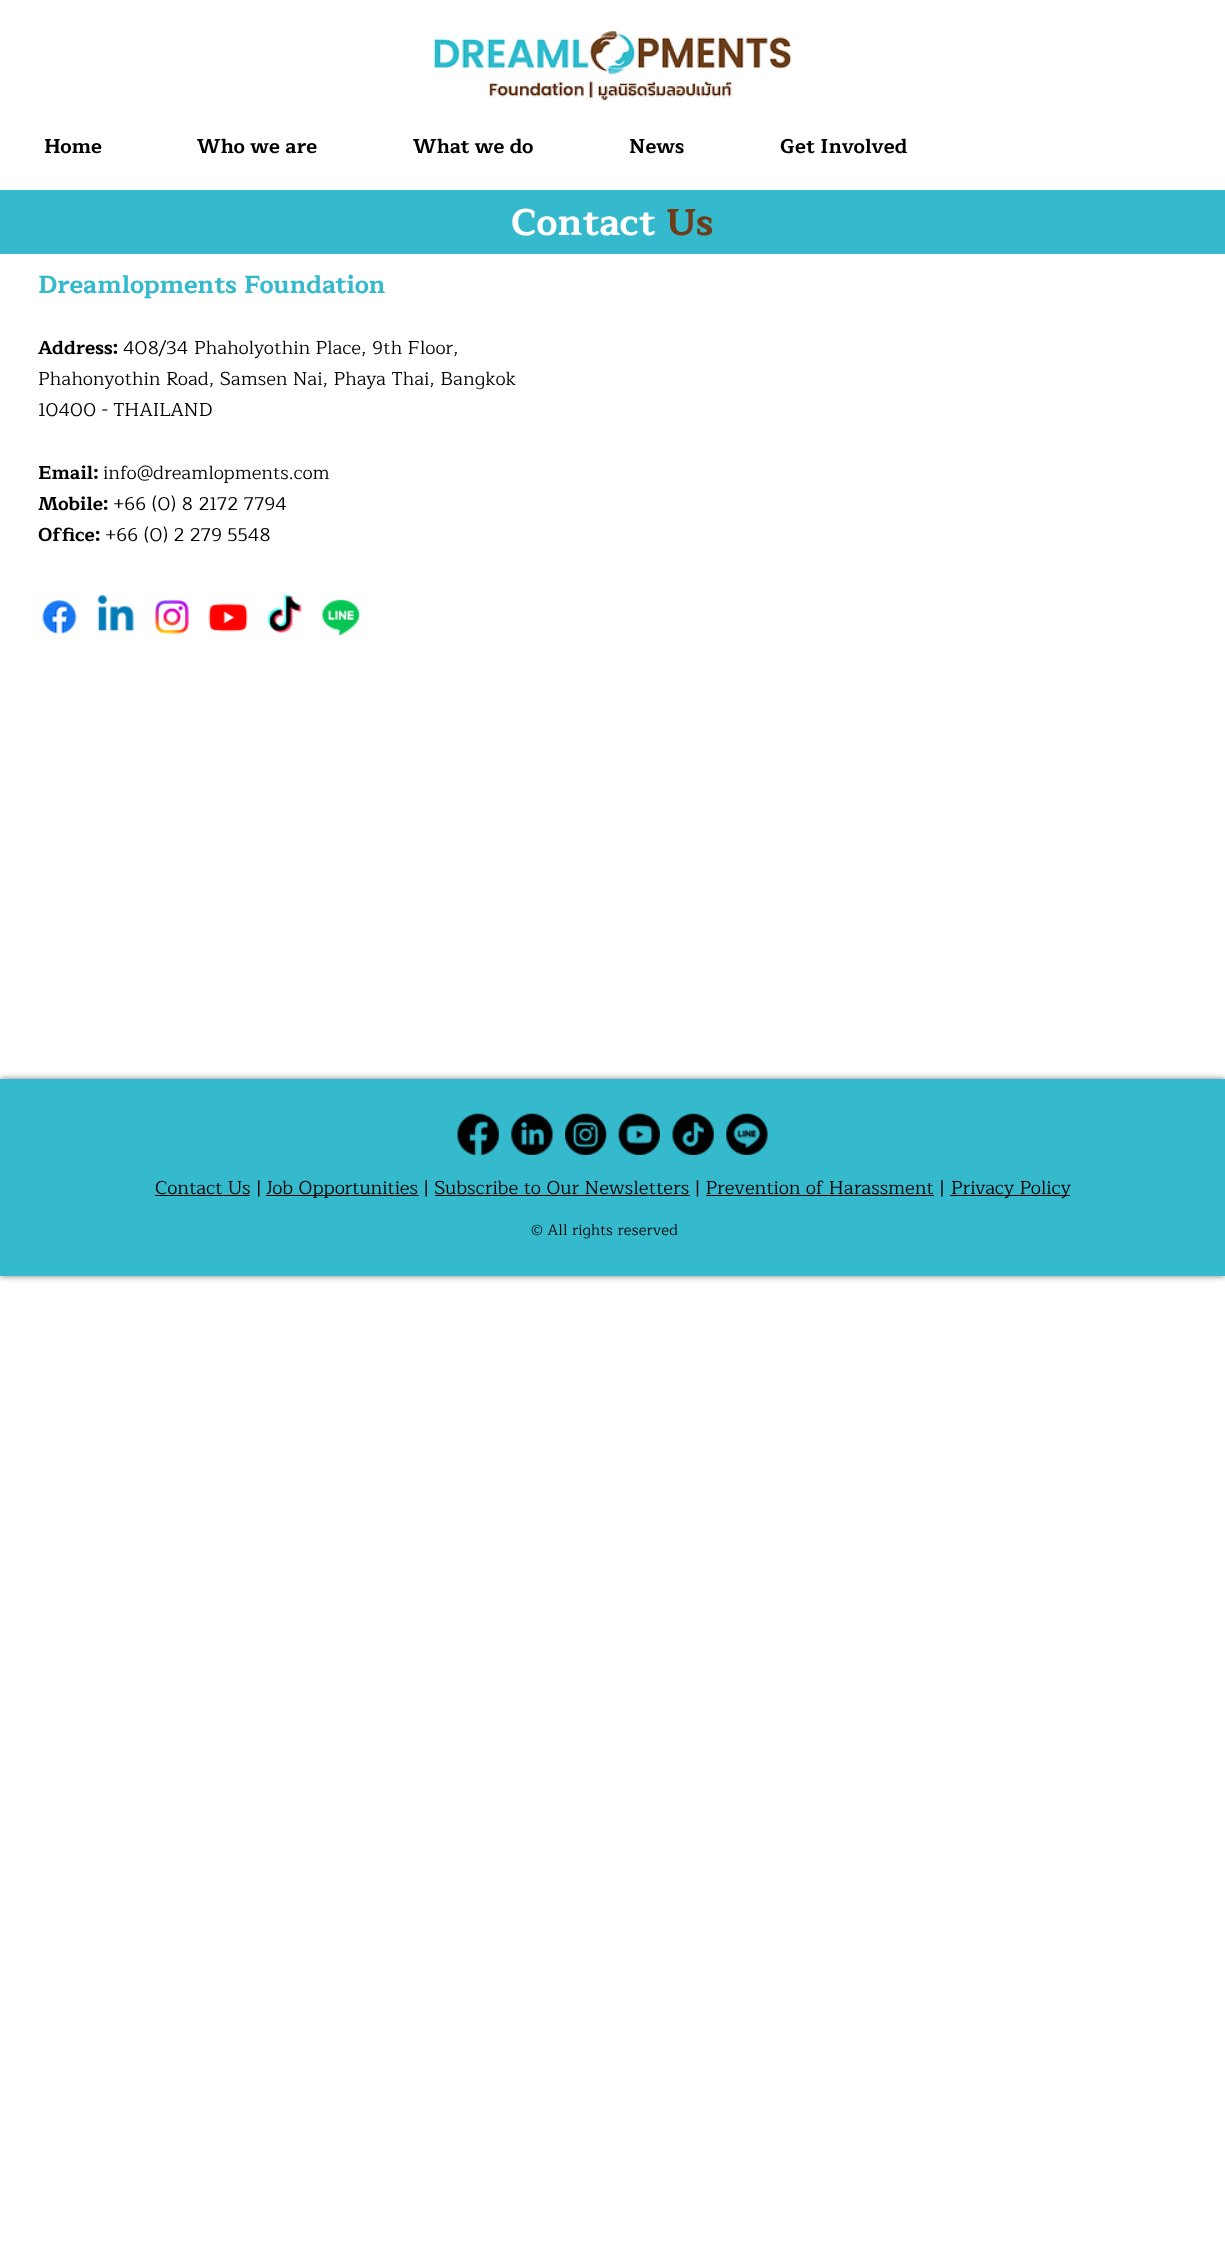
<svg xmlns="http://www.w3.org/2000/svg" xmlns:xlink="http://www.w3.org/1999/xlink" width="1225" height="2256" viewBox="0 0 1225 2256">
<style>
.cls-1{font:bold 20px Maitree;fill:#000000}
.cls-2{font:bold 37.5px Maitree;fill:#ffffff}
.cls-3{font:bold 37.5px Maitree;fill:#6c3d18}
.cls-4{font:bold 25px Maitree;fill:#35b9cd}
.cls-5{font:bold 18.75px Maitree;fill:#000000}
.cls-6{font:18.75px Maitree;fill:#000000}
.cls-7{font:15px Maitree;letter-spacing:0.15px;fill:#000000}
</style>
<rect width="100%" height="100%" fill="#ffffff"/>
<image xlink:href="image0.png" x="433" y="31" width="359" height="70"/>
<rect fill="#35b9cd" x="0" y="190" width="1225" height="64"/>
<image xlink:href="image1.png" x="42" y="599" width="35" height="35"/>
<image xlink:href="image2.png" x="97" y="595" width="37" height="37"/>
<image xlink:href="image3.png" x="154" y="599" width="35" height="35"/>
<image xlink:href="image4.png" x="208" y="603" width="40" height="29"/>
<image xlink:href="image5.png" x="267" y="595" width="35" height="38"/>
<image xlink:href="image6.png" x="321" y="599" width="40" height="37"/>
<rect fill="#000000" fill-opacity="0.52" filter="blur(3px)" x="0" y="1079" width="1225" height="197"/>
<rect fill="#35b9cd" x="0" y="1079" width="1225" height="197"/>
<image xlink:href="image7.png" x="457" y="1113" width="42" height="42"/>
<image xlink:href="image8.png" x="511" y="1113" width="42" height="42"/>
<image xlink:href="image9.png" x="565" y="1113" width="42" height="42"/>
<image xlink:href="image10.png" x="618" y="1113" width="42" height="42"/>
<image xlink:href="image11.png" x="672" y="1113" width="42" height="42"/>
<image xlink:href="image12.png" x="726" y="1113" width="42" height="42"/>
<rect fill="#000000" x="155" y="1195" width="95" height="1"/>
<rect fill="#000000" x="266" y="1195" width="153" height="1"/>
<rect fill="#000000" x="435" y="1195" width="255" height="1"/>
<rect fill="#000000" x="706" y="1195" width="228" height="1"/>
<rect fill="#000000" x="950" y="1195" width="120" height="1"/>
<text class="cls-1" x="44" y="153">Home</text>
<text class="cls-1" x="197" y="153">Who we are</text>
<text class="cls-1" x="413" y="153">What we do</text>
<text class="cls-1" x="629" y="153">News</text>
<text class="cls-1" x="780" y="153">Get Involved</text>
<text class="cls-2" x="511" y="235">Contact</text>
<text class="cls-3" x="666" y="235">Us</text>
<text class="cls-4" x="38" y="293">Dreamlopments Foundation</text>
<text class="cls-5" x="38" y="354">Address:</text>
<text class="cls-6" x="123" y="354">408/34 Phaholyothin Place, 9th Floor,</text>
<text class="cls-6"><tspan x="38" y="385">Phahonyothin Road, Samsen Nai, Phaya Thai, Bangkok</tspan><tspan x="38" y="416">10400 - THAILAND</tspan></text>
<text class="cls-5" x="38" y="479">Email:</text>
<text class="cls-6" x="103" y="479">info@dreamlopments.com</text>
<text class="cls-5" x="38" y="510">Mobile:</text>
<text class="cls-6" x="113" y="510">+66 (0) 8 2172 7794</text>
<text class="cls-5" x="38" y="541">Office:</text>
<text class="cls-6" x="105" y="541">+66 (0) 2 279 5548</text>
<text class="cls-6" x="155" y="1194">Contact Us |</text>
<text class="cls-6" x="266" y="1194">Job Opportunities | Subscribe to Our Newsletters | Prevention of Harassment |</text>
<text class="cls-6" x="951" y="1194">Privacy Policy</text>
<text class="cls-7" x="531" y="1235">© All rights reserved</text>
</svg>
